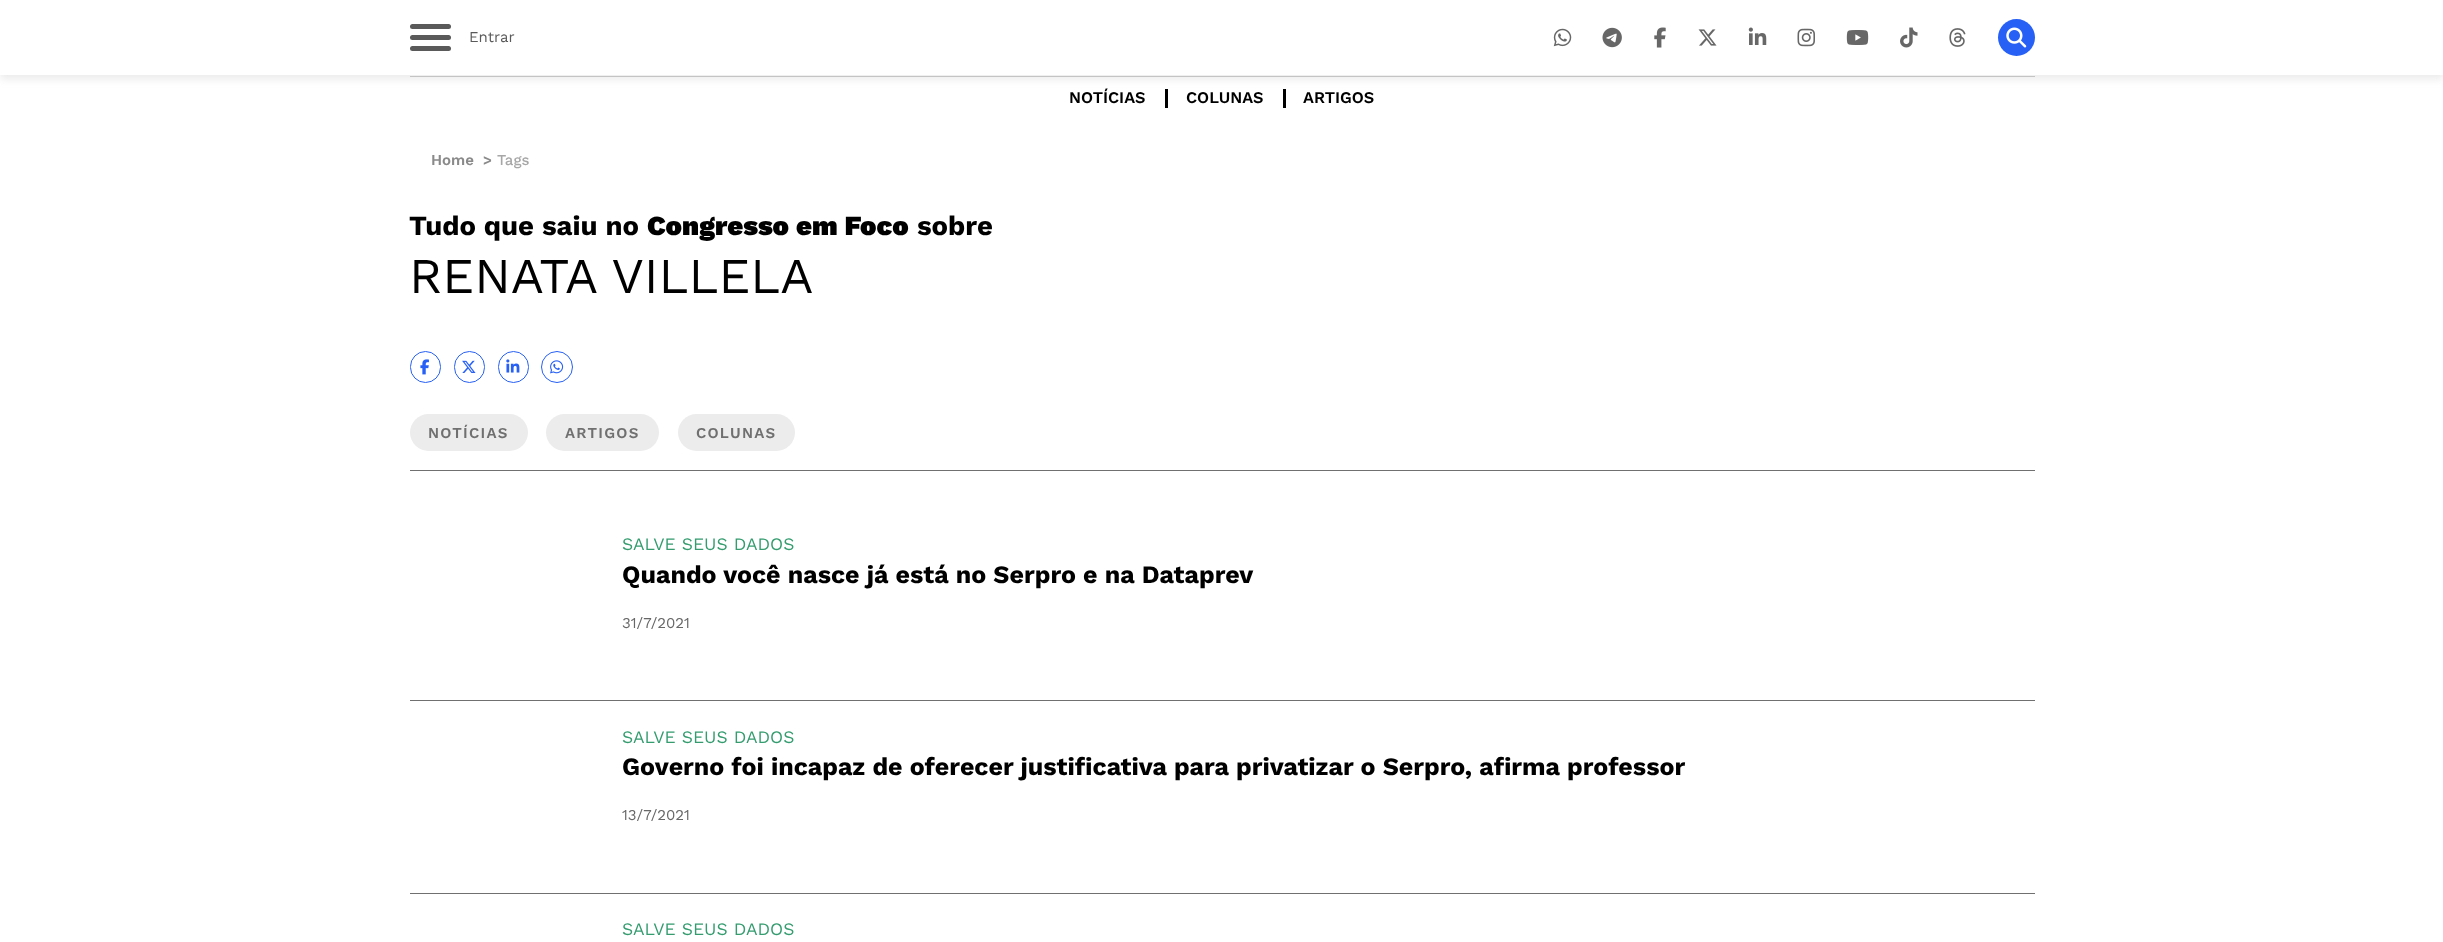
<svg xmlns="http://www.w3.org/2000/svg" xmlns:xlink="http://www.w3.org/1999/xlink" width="2443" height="942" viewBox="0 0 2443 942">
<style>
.cls-1{font:15px Work Sans;fill:#5a5a5a}
.cls-2{font:600 16.25px Work Sans;fill:#000000}
.cls-3{font:600 15px Work Sans;fill:#8a8a8a}
.cls-4{font:500 15px Work Sans;fill:#a7a7a7}
.cls-5{font:bold 27.5px Work Sans;fill:#000000}
.cls-6{font:900 27.5px Work Sans;fill:#000000}
.cls-7{font:50px Work Sans;fill:#000000}
.cls-8{font:600 15px Work Sans;letter-spacing:1.25px;fill:#707070}
.cls-9{font:17.5px Work Sans;fill:#349c6f}
.cls-10{font:bold 25px Work Sans;fill:#000000}
.cls-11{font:15px Work Sans;fill:#676767}
</style>
<rect width="100%" height="100%" fill="#ffffff"/>
<rect fill="#cecece" x="410" y="76" width="1625" height="1"/>
<rect fill="#000000" x="1165" y="89" width="3" height="19"/>
<rect fill="#000000" x="1283" y="89" width="3" height="19"/>
<rect fill="#7a7a7a" fill-opacity="0.16" filter="blur(4px)" x="0" y="4" width="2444" height="75"/>
<rect fill="#ffffff" x="0" y="0" width="2443" height="75"/>
<rect fill="#5a5a5a" x="410" y="24" width="41" height="5" rx="2.5"/>
<rect fill="#5a5a5a" x="410" y="35" width="41" height="5" rx="2.5"/>
<rect fill="#5a5a5a" x="410" y="46" width="41" height="5" rx="2.5"/>
<image xlink:href="image0.png" x="1553" y="28" width="19" height="19"/>
<image xlink:href="image1.png" x="1602" y="27" width="20" height="21"/>
<image xlink:href="image2.png" x="1654" y="27" width="12" height="21"/>
<image xlink:href="image3.png" x="1698" y="29" width="19" height="17"/>
<image xlink:href="image4.png" x="1748" y="27" width="19" height="18"/>
<image xlink:href="image5.png" x="1797" y="28" width="18" height="19"/>
<image xlink:href="image6.png" x="1846" y="30" width="23" height="15"/>
<image xlink:href="image7.png" x="1900" y="27" width="18" height="21"/>
<image xlink:href="image8.png" x="1949" y="28" width="17" height="19"/>
<circle fill="#2660f5" cx="2016.5" cy="37.5" r="18.5"/>
<image xlink:href="image9.png" x="2006" y="27" width="21" height="21"/>
<rect fill="none" stroke="#2660f5" x="410.5" y="351.5" width="30" height="31" rx="15"/>
<image xlink:href="image10.png" x="420" y="359" width="9" height="16"/>
<rect fill="none" stroke="#2660f5" x="454.5" y="351.5" width="30" height="31" rx="15"/>
<image xlink:href="image11.png" x="462" y="360" width="14" height="13"/>
<rect fill="none" stroke="#2660f5" x="498.5" y="351.5" width="30" height="31" rx="15"/>
<image xlink:href="image12.png" x="506" y="359" width="14" height="14"/>
<circle fill="none" stroke="#2660f5" cx="557" cy="367" r="15.5"/>
<image xlink:href="image13.png" x="550" y="360" width="14" height="14"/>
<rect fill="#707070" x="410" y="470" width="1625" height="1"/>
<rect fill="#ececec" x="410" y="414" width="118" height="37" rx="18.5"/>
<rect fill="#ececec" x="546" y="414" width="113" height="37" rx="18.5"/>
<rect fill="#ececec" x="678" y="414" width="117" height="37" rx="18.5"/>
<rect fill="#707070" x="410" y="700" width="1625" height="1"/>
<rect fill="#707070" x="410" y="893" width="1625" height="1"/>
<text class="cls-1" x="469" y="42">Entrar</text>
<text class="cls-2" x="1069" y="103">NOTÍCIAS</text>
<text class="cls-2" x="1186" y="103">COLUNAS</text>
<text class="cls-2" x="1303" y="103">ARTIGOS</text>
<text class="cls-3" x="431" y="165">Home</text>
<text class="cls-3" x="483" y="165">&gt;</text>
<text class="cls-4" x="497" y="165">Tags</text>
<text class="cls-5" x="409" y="235">Tudo que saiu no</text>
<text class="cls-6" x="647" y="235">Congresso em Foco</text>
<text class="cls-5" x="917" y="235">sobre</text>
<text class="cls-7" x="409" y="293">RENATA VILLELA</text>
<text class="cls-8" x="428" y="438">NOTÍCIAS</text>
<text class="cls-8" x="565" y="438">ARTIGOS</text>
<text class="cls-8" x="696" y="438">COLUNAS</text>
<text class="cls-9" x="622" y="550">SALVE SEUS DADOS</text>
<text class="cls-10" x="622" y="583">Quando você nasce já está no Serpro e na Dataprev</text>
<text class="cls-11" x="622" y="628">31/7/2021</text>
<text class="cls-9" x="622" y="743">SALVE SEUS DADOS</text>
<text class="cls-10" x="622" y="775">Governo foi incapaz de oferecer justificativa para privatizar o Serpro, afirma professor</text>
<text class="cls-11" x="622" y="820">13/7/2021</text>
<text class="cls-9" x="622" y="935">SALVE SEUS DADOS</text>
</svg>
